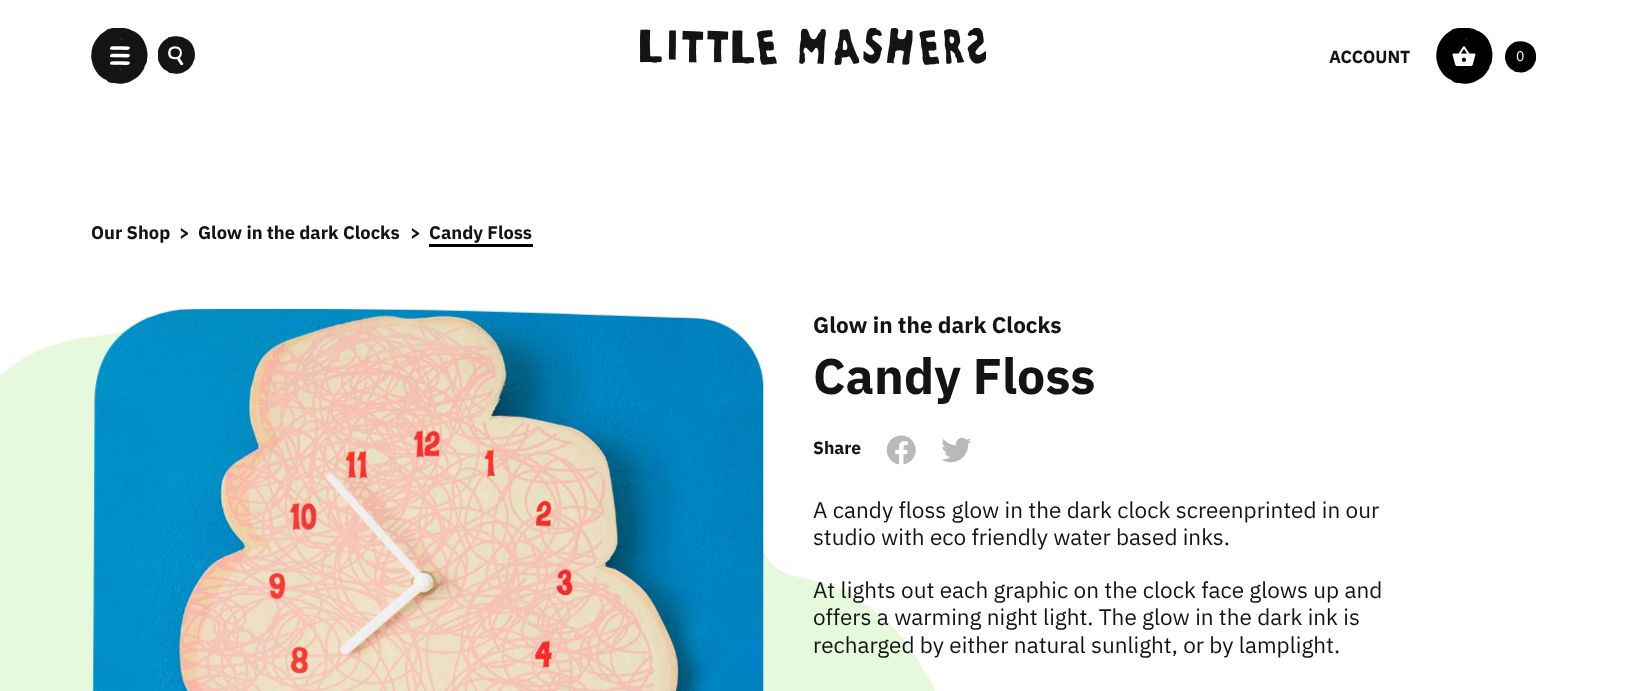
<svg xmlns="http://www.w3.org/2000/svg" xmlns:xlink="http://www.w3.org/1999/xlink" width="1626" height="691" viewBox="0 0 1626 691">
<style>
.cls-1{font:bold 17.5px IBM Plex Sans;fill:#141414}
.cls-2{font:14px IBM Plex Sans;fill:#ffffff}
.cls-3{font:bold 18.25px IBM Plex Sans;fill:#141414}
.cls-4{font:bold 22.5px IBM Plex Sans;fill:#141414}
.cls-5{font:bold 50px IBM Plex Sans;fill:#141414}
.cls-6{font:22.5px IBM Plex Sans;fill:#141414}
</style>
<rect width="100%" height="100%" fill="#ffffff"/>
<image xlink:href="image0.png" x="91" y="28" width="57" height="56"/>
<image xlink:href="image1.png" x="158" y="36" width="37" height="38"/>
<image xlink:href="image2.png" x="640" y="28" width="346" height="37"/>
<image xlink:href="image3.png" x="1436" y="28" width="57" height="56"/>
<image xlink:href="image4.png" x="1505" y="41" width="31" height="32"/>
<rect fill="#000000" x="429" y="244" width="104" height="3"/>
<image xlink:href="image8.png" x="0" y="332" width="936" height="359"/>
<image xlink:href="image5.png" x="92" y="309" width="672" height="382"/>
<image xlink:href="image6.png" x="886" y="435" width="30" height="30"/>
<image xlink:href="image7.png" x="941" y="437" width="30" height="26"/>
<text class="cls-1" x="1329" y="63">ACCOUNT</text>
<text class="cls-2" x="1516" y="61">0</text>
<text class="cls-3" x="91" y="239">Our Shop</text>
<text class="cls-3" x="179" y="239">&gt;</text>
<text class="cls-3" x="198" y="239">Glow in the dark Clocks</text>
<text class="cls-3" x="410" y="239">&gt;</text>
<text class="cls-3" x="429" y="239">Candy Floss</text>
<text class="cls-4" x="813" y="333">Glow in the dark Clocks</text>
<text class="cls-5" x="813" y="394">Candy Floss</text>
<text class="cls-1" x="813" y="454">Share</text>
<text class="cls-6"><tspan x="813" y="518">A candy floss glow in the dark clock screenprinted in our</tspan><tspan x="813" y="545">studio with eco friendly water based inks.</tspan></text>
<text class="cls-6"><tspan x="813" y="598">At lights out each graphic on the clock face glows up and</tspan><tspan x="813" y="625">offers a warming night light. The glow in the dark ink is</tspan><tspan x="813" y="653">recharged by either natural sunlight, or by lamplight.</tspan></text>
</svg>
